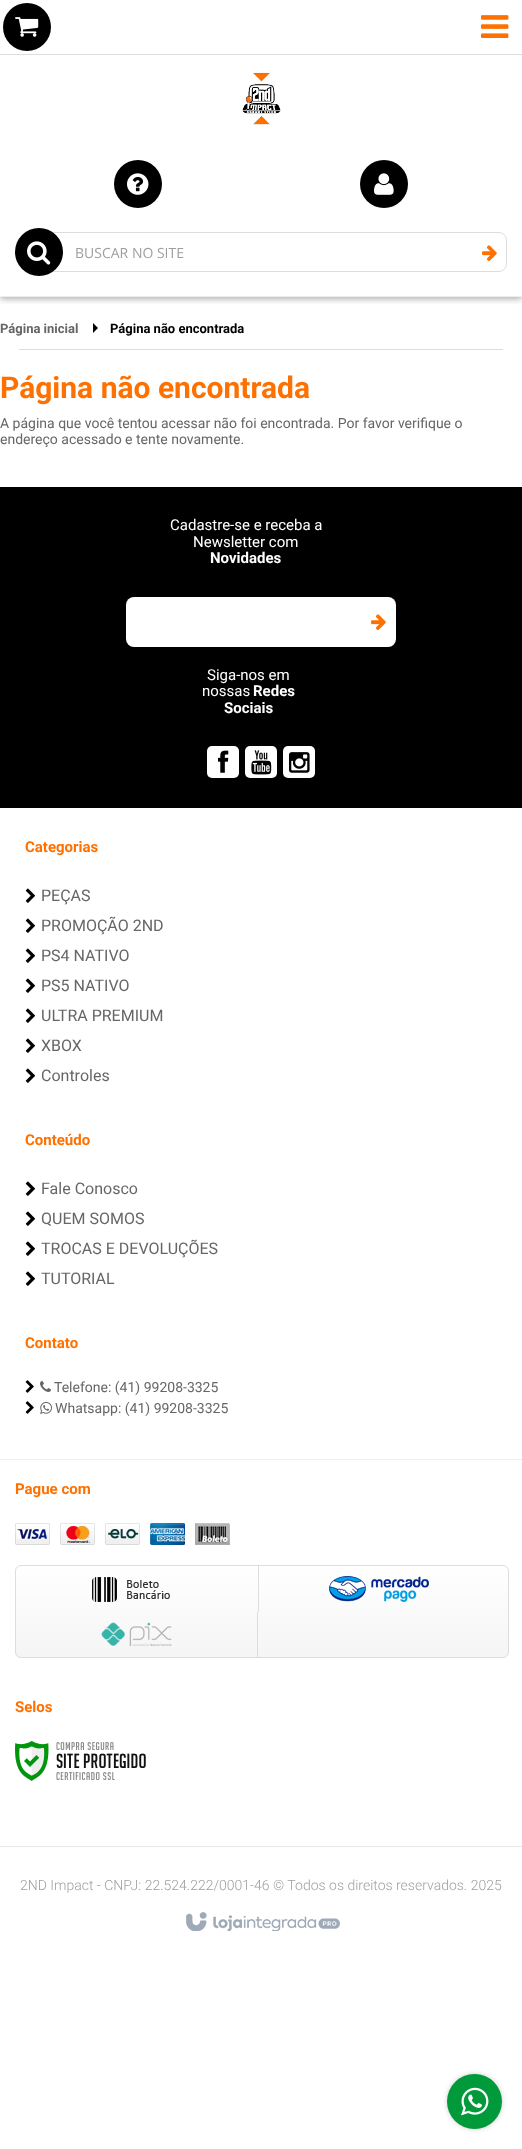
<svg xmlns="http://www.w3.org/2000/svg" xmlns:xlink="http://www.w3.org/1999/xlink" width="522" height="2149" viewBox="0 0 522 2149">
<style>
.cls-1{font:14px Open Sans;fill:#9e9e9e}
.cls-2{font:bold 13px Roboto;fill:#666666}
.cls-3{font:bold 13px Roboto;fill:#000000}
.cls-4{font:bold 30px Roboto;fill:#fe7100}
.cls-5{font:14px Roboto;fill:#666666}
.cls-6{font:15px Roboto;fill:#ffffff}
.cls-7{font:bold 15px Roboto;fill:#ffffff}
.cls-8{font:bold 15px Roboto;fill:#fe7100}
.cls-9{font:16px Roboto;fill:#666666}
.cls-10{font:300 14px Roboto;fill:#9e9e9e}
</style>
<defs>
<clipPath id="clip1"><rect x="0" y="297" width="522" height="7"/></clipPath>
<clipPath id="clip2"><rect x="15" y="1565" width="494" height="93" rx="6"/></clipPath>
<linearGradient id="g1" gradientUnits="userSpaceOnUse" x1="262" y1="1566" x2="262" y2="1657"><stop offset="0" stop-color="#ffffff"/><stop offset="1" stop-color="#f5f5f5"/></linearGradient>
</defs>
<rect width="100%" height="100%" fill="#ffffff"/>
<g clip-path="url(#clip1)">
<rect fill="#2b2b2b" fill-opacity="0.38" filter="blur(3px)" x="0" y="2" width="522" height="297"/>
</g>
<rect fill="#dddddd" x="0" y="54" width="522" height="1"/>
<rect fill="#eeeeee" x="0" y="296" width="522" height="1"/>
<image xlink:href="image0.png" x="481" y="15" width="28" height="23"/>
<image xlink:href="image1.png" x="242" y="72" width="39" height="53"/>
<circle fill="#000000" cx="27" cy="27" r="24"/>
<image xlink:href="image2.png" x="15" y="17" width="24" height="20"/>
<circle fill="#000000" cx="138" cy="184" r="24"/>
<image xlink:href="image3.png" x="127" y="173" width="22" height="22"/>
<circle fill="#000000" cx="384" cy="184" r="24"/>
<image xlink:href="image4.png" x="374" y="173" width="20" height="22"/>
<rect fill="none" stroke="#dddddd" x="35.5" y="232.5" width="471" height="39" rx="7.5"/>
<circle fill="#000000" cx="39" cy="252" r="24"/>
<image xlink:href="image5.png" x="27" y="241" width="24" height="24"/>
<image xlink:href="image6.png" x="482" y="245" width="15" height="16"/>
<path fill="#000000" d="M93 333V323L98 328Z"/>
<rect fill="#dedede" x="19" y="349" width="484" height="1"/>
<rect fill="#000000" x="0" y="487" width="522" height="321"/>
<rect fill="#ffffff" x="126" y="597" width="270" height="50" rx="8"/>
<image xlink:href="image6.png" x="371" y="614" width="15" height="16"/>
<rect fill="#ffffff" x="207" y="746" width="32" height="32" rx="5"/>
<image xlink:href="image7.png" x="218" y="750" width="11" height="23"/>
<rect fill="#ffffff" x="245" y="746" width="32" height="32" rx="5"/>
<image xlink:href="image8.png" x="251" y="750" width="21" height="25"/>
<rect fill="#ffffff" x="283" y="746" width="32" height="32" rx="5"/>
<image xlink:href="image9.png" x="289" y="752" width="21" height="21"/>
<rect fill="#eeeeee" x="0" y="1459" width="522" height="1"/>
<image xlink:href="image10.png" x="25" y="888" width="10" height="15"/>
<image xlink:href="image10.png" x="25" y="918" width="10" height="15"/>
<image xlink:href="image10.png" x="25" y="948" width="10" height="15"/>
<image xlink:href="image10.png" x="25" y="978" width="10" height="15"/>
<image xlink:href="image10.png" x="25" y="1008" width="10" height="15"/>
<image xlink:href="image10.png" x="25" y="1038" width="10" height="15"/>
<image xlink:href="image10.png" x="25" y="1068" width="10" height="15"/>
<image xlink:href="image10.png" x="25" y="1181" width="10" height="15"/>
<image xlink:href="image10.png" x="25" y="1211" width="10" height="15"/>
<image xlink:href="image10.png" x="25" y="1241" width="10" height="15"/>
<image xlink:href="image10.png" x="25" y="1271" width="10" height="15"/>
<image xlink:href="image11.png" x="25" y="1380" width="9" height="13"/>
<image xlink:href="image12.png" x="40" y="1381" width="11" height="11"/>
<image xlink:href="image11.png" x="25" y="1401" width="9" height="13"/>
<image xlink:href="image13.png" x="40" y="1402" width="12" height="12"/>
<image xlink:href="image14.png" x="15" y="1523" width="35" height="22"/>
<image xlink:href="image15.png" x="60" y="1523" width="35" height="22"/>
<image xlink:href="image16.png" x="105" y="1523" width="35" height="22"/>
<image xlink:href="image17.png" x="150" y="1523" width="35" height="22"/>
<image xlink:href="image18.png" x="195" y="1523" width="35" height="22"/>
<g clip-path="url(#clip2)">
<rect fill="url(#g1)" x="15" y="1566" width="494" height="91"/>
</g>
<rect fill="none" stroke="#dddddd" x="15.5" y="1565.5" width="493" height="92" rx="5.5"/>
<image xlink:href="image19.png" x="92" y="1577" width="78" height="25"/>
<rect fill="#dddddd" x="258" y="1566" width="1" height="46"/>
<image xlink:href="image20.png" x="329" y="1576" width="100" height="26"/>
<rect fill="#dddddd" x="257" y="1612" width="1" height="45"/>
<image xlink:href="image21.png" x="101" y="1622" width="71" height="25"/>
<image xlink:href="image22.png" x="15" y="1741" width="131" height="40"/>
<rect fill="#e7e7e7" x="0" y="1846" width="522" height="1"/>
<image xlink:href="image23.png" x="186" y="1912" width="154" height="19"/>
<rect fill="#000000" fill-opacity="0.2" filter="blur(2.5px)" x="447" y="2074" width="55" height="55" rx="27.5"/>
<circle fill="#009a3a" cx="474.5" cy="2101.5" r="27.5"/>
<image xlink:href="image24.png" x="461" y="2087" width="28" height="29"/>
<text class="cls-1" x="75" y="258">BUSCAR NO SITE</text>
<text class="cls-2" x="0" y="333">Página inicial</text>
<text class="cls-3" x="110" y="333">Página não encontrada</text>
<text class="cls-4" x="0" y="398">Página não encontrada</text>
<text class="cls-5"><tspan x="0" y="428">A página que você tentou acessar não foi encontrada. Por favor verifique o</tspan><tspan x="0" y="444">endereço acessado e tente novamente.</tspan></text>
<text class="cls-6" x="170" y="530">Cadastre-se e receba a</text>
<text class="cls-6" x="193" y="547">Newsletter com</text>
<text class="cls-7" x="210" y="563">Novidades</text>
<text class="cls-6" x="207" y="680">Siga-nos em</text>
<text class="cls-6" x="202" y="696">nossas</text>
<text class="cls-7" x="253" y="696">Redes</text>
<text class="cls-7" x="224" y="713">Sociais</text>
<text class="cls-8" x="25" y="852">Categorias</text>
<text class="cls-9"><tspan x="41" y="901">PEÇAS</tspan><tspan x="41" y="931">PROMOÇÃO 2ND</tspan><tspan x="41" y="961">PS4 NATIVO</tspan><tspan x="41" y="991">PS5 NATIVO</tspan><tspan x="41" y="1021">ULTRA PREMIUM</tspan><tspan x="41" y="1051">XBOX</tspan><tspan x="41" y="1081">Controles</tspan></text>
<text class="cls-8" x="25" y="1145">Conteúdo</text>
<text class="cls-9"><tspan x="41" y="1194">Fale Conosco</tspan><tspan x="41" y="1224">QUEM SOMOS</tspan><tspan x="41" y="1254">TROCAS E DEVOLUÇÕES</tspan><tspan x="41" y="1284">TUTORIAL</tspan></text>
<text class="cls-8" x="25" y="1348">Contato</text>
<text class="cls-5" x="54" y="1392">Telefone: (41) 99208-3325</text>
<text class="cls-5" x="55" y="1413">Whatsapp: (41) 99208-3325</text>
<text class="cls-8" x="15" y="1494">Pague com</text>
<text class="cls-8" x="15" y="1712">Selos</text>
<text class="cls-10" x="20" y="1890">2ND Impact - CNPJ: 22.524.222/0001-46 © Todos os direitos reservados. 2025</text>
</svg>
